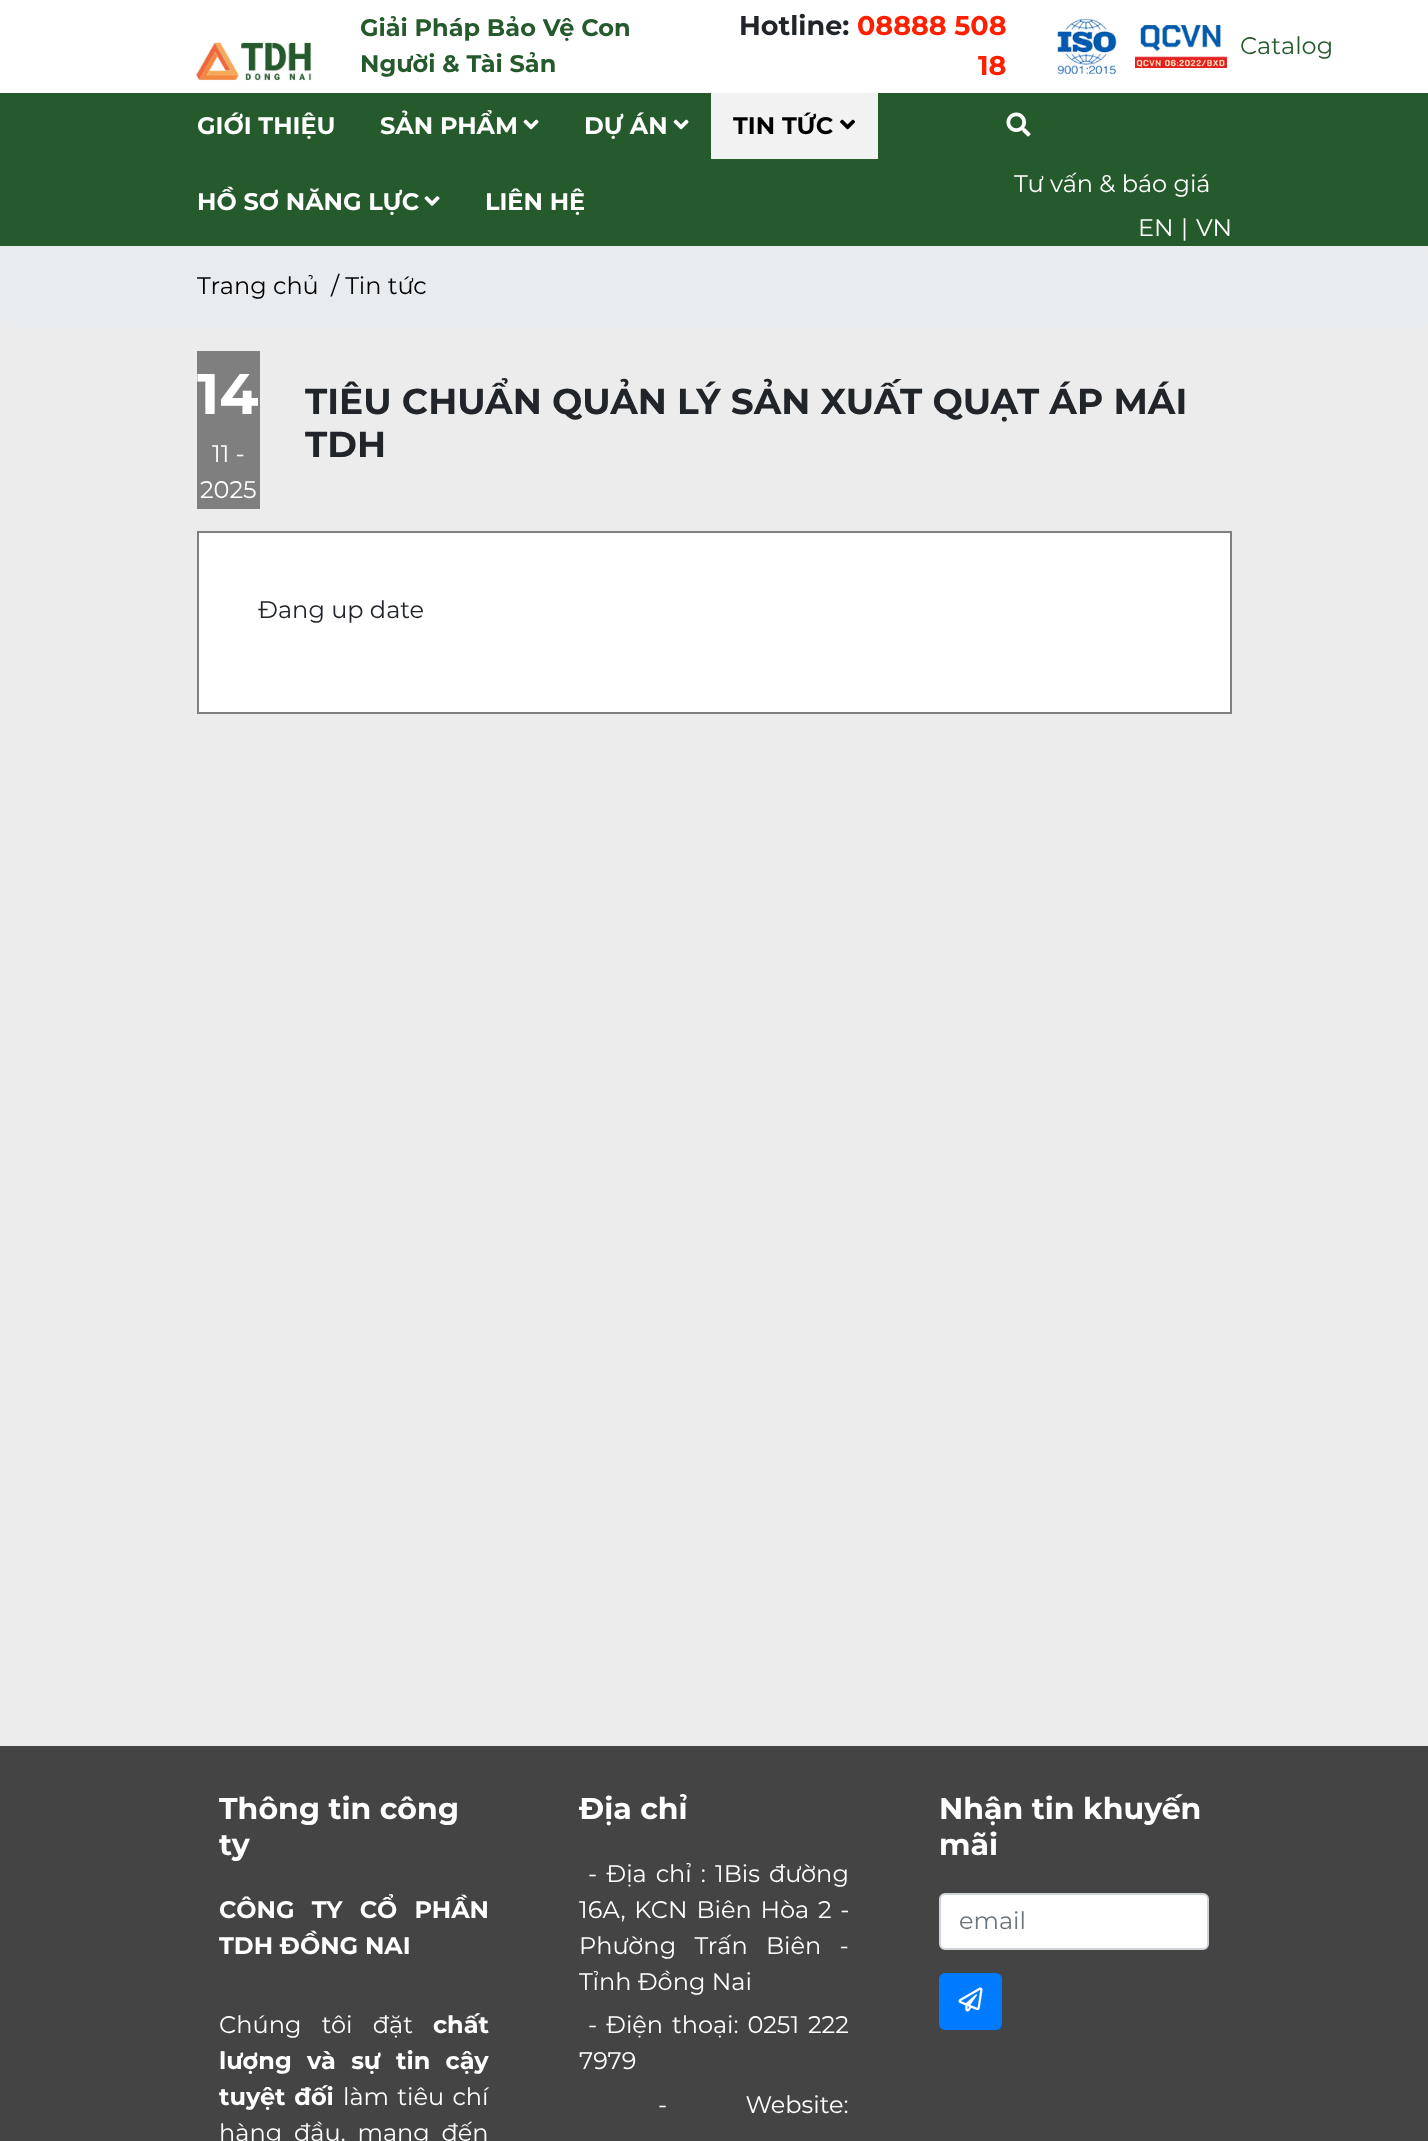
<svg xmlns="http://www.w3.org/2000/svg" xmlns:xlink="http://www.w3.org/1999/xlink" width="1428" height="2141" viewBox="0 0 1428 2141">
<style>
.cls-1{font:bold 24px Montserrat;fill:#255a2c}
.cls-2{font:bold 27px Montserrat;fill:#212529}
.cls-3{font:bold 27px Montserrat;fill:#ff2000}
.cls-4{font:24px Montserrat;fill:#255a2c}
.cls-5{font:bold 24px Montserrat;fill:#ffffff}
.cls-6{font:bold 24px Montserrat;fill:#000000}
.cls-7{font:24px Montserrat;fill:#ffffff}
.cls-8{font:24px Montserrat;fill:#000000}
.cls-9{font:bold 57px Montserrat;fill:#ffffff}
.cls-10{font:bold 36px Montserrat;fill:#212529}
.cls-11{font:24px Montserrat;fill:#212529}
.cls-12{font:bold 30px Montserrat;fill:#ffffff}
.cls-13{font:24px Montserrat;fill:#6c757d}
</style>
<rect width="100%" height="100%" fill="#ffffff"/>
<image xlink:href="image0.png" x="196" y="42" width="116" height="39"/>
<image xlink:href="image1.png" x="1057" y="19" width="170" height="56"/>
<rect fill="#255a2c" x="0" y="93" width="1428" height="153"/>
<image xlink:href="image2.png" x="523" y="119" width="16" height="11"/>
<image xlink:href="image2.png" x="673" y="119" width="16" height="11"/>
<rect fill="#f2f2f2" x="711" y="93" width="167" height="66"/>
<image xlink:href="image3.png" x="840" y="119" width="15" height="11"/>
<image xlink:href="image4.png" x="424" y="196" width="16" height="10"/>
<image xlink:href="image5.png" x="1006" y="112" width="25" height="25"/>
<rect fill="#ececec" x="0" y="246" width="1428" height="1500"/>
<rect fill="#e9ecef" x="0" y="246" width="1428" height="81" rx="6"/>
<rect fill="#7f7f7f" x="197" y="351" width="63" height="158"/>
<rect fill="#ffffff" stroke="#7f7f7f" stroke-width="2" x="198" y="532" width="1033" height="181"/>
<rect fill="#444444" x="0" y="1746" width="1428" height="395"/>
<rect fill="#ffffff" stroke="#ced4da" stroke-width="2" x="940" y="1894" width="268" height="55" rx="5"/>
<rect fill="#007bff" stroke="#007bff" stroke-width="2" x="940" y="1974" width="61" height="55" rx="5"/>
<image xlink:href="image6.png" x="958" y="1987" width="25" height="25"/>
<text class="cls-1"><tspan x="360" y="36">Giải Pháp Bảo Vệ Con</tspan><tspan x="360" y="72">Người &amp; Tài Sản</tspan></text>
<text class="cls-2" x="739" y="35">Hotline:</text>
<text class="cls-3" x="857" y="35">08888 508</text>
<text class="cls-3" x="978" y="75">18</text>
<text class="cls-4" x="1240" y="54">Catalog</text>
<text class="cls-5" x="197" y="134">GIỚI THIỆU</text>
<text class="cls-5" x="380" y="134">SẢN PHẨM</text>
<text class="cls-5" x="584" y="134">DỰ ÁN</text>
<text class="cls-6" x="733" y="134">TIN TỨC</text>
<text class="cls-5" x="197" y="210">HỒ SƠ NĂNG LỰC</text>
<text class="cls-5" x="485" y="210">LIÊN HỆ</text>
<text class="cls-7" x="1014" y="192">Tư vấn &amp; báo giá</text>
<text class="cls-7" x="1138" y="236">EN</text>
<text class="cls-7" x="1181" y="236">|</text>
<text class="cls-7" x="1196" y="236">VN</text>
<text class="cls-8" x="197" y="294">Trang chủ</text>
<text class="cls-8" x="331" y="294">/ Tin tức</text>
<text class="cls-9" x="197" y="414">14</text>
<text class="cls-7" x="212" y="462">11 -</text>
<text class="cls-7" x="200" y="498">2025</text>
<text class="cls-10"><tspan x="305" y="414">TIÊU CHUẨN QUẢN LÝ SẢN XUẤT QUẠT ÁP MÁI</tspan><tspan x="305" y="457">TDH</tspan></text>
<text class="cls-11" x="258" y="618">Đang up date</text>
<text class="cls-12"><tspan x="219" y="1819">Thông tin công</tspan><tspan x="219" y="1855">ty</tspan></text>
<text class="cls-5"><tspan x="219" y="1918" word-spacing="10.5">CÔNG TY CỔ PHẦN</tspan><tspan x="219" y="1954">TDH ĐỒNG NAI</tspan></text>
<text class="cls-7" x="219" y="2033" word-spacing="14">Chúng tôi đặt</text>
<text class="cls-5" x="433" y="2033">chất</text>
<text class="cls-5"><tspan x="219" y="2069" word-spacing="8.5">lượng và sự tin cậy</tspan><tspan x="219" y="2105" word-spacing="2">tuyệt đối</tspan></text>
<text class="cls-7" x="343" y="2105" word-spacing="2">làm tiêu chí</text>
<text class="cls-7" x="219" y="2141" word-spacing="5.5">hàng đầu, mang đến</text>
<text class="cls-12" x="579" y="1819">Địa chỉ</text>
<text class="cls-7" x="588" y="1882" word-spacing="2.75">- Địa chỉ : 1Bis đường</text>
<text class="cls-7"><tspan x="579" y="1918" word-spacing="2.5">16A, KCN Biên Hòa 2 -</tspan><tspan x="579" y="1954" word-spacing="12">Phường Trấn Biên -</tspan><tspan x="579" y="1990">Tỉnh Đồng Nai</tspan></text>
<text class="cls-7" x="588" y="2033" word-spacing="2.5">- Điện thoại: 0251 222</text>
<text class="cls-7" x="579" y="2069">7979</text>
<text class="cls-7" x="658" y="2113" word-spacing="72">- Website:</text>
<text class="cls-12"><tspan x="939" y="1819">Nhận tin khuyến</tspan><tspan x="939" y="1855">mãi</tspan></text>
<text class="cls-13" x="959" y="1929">email</text>
</svg>
